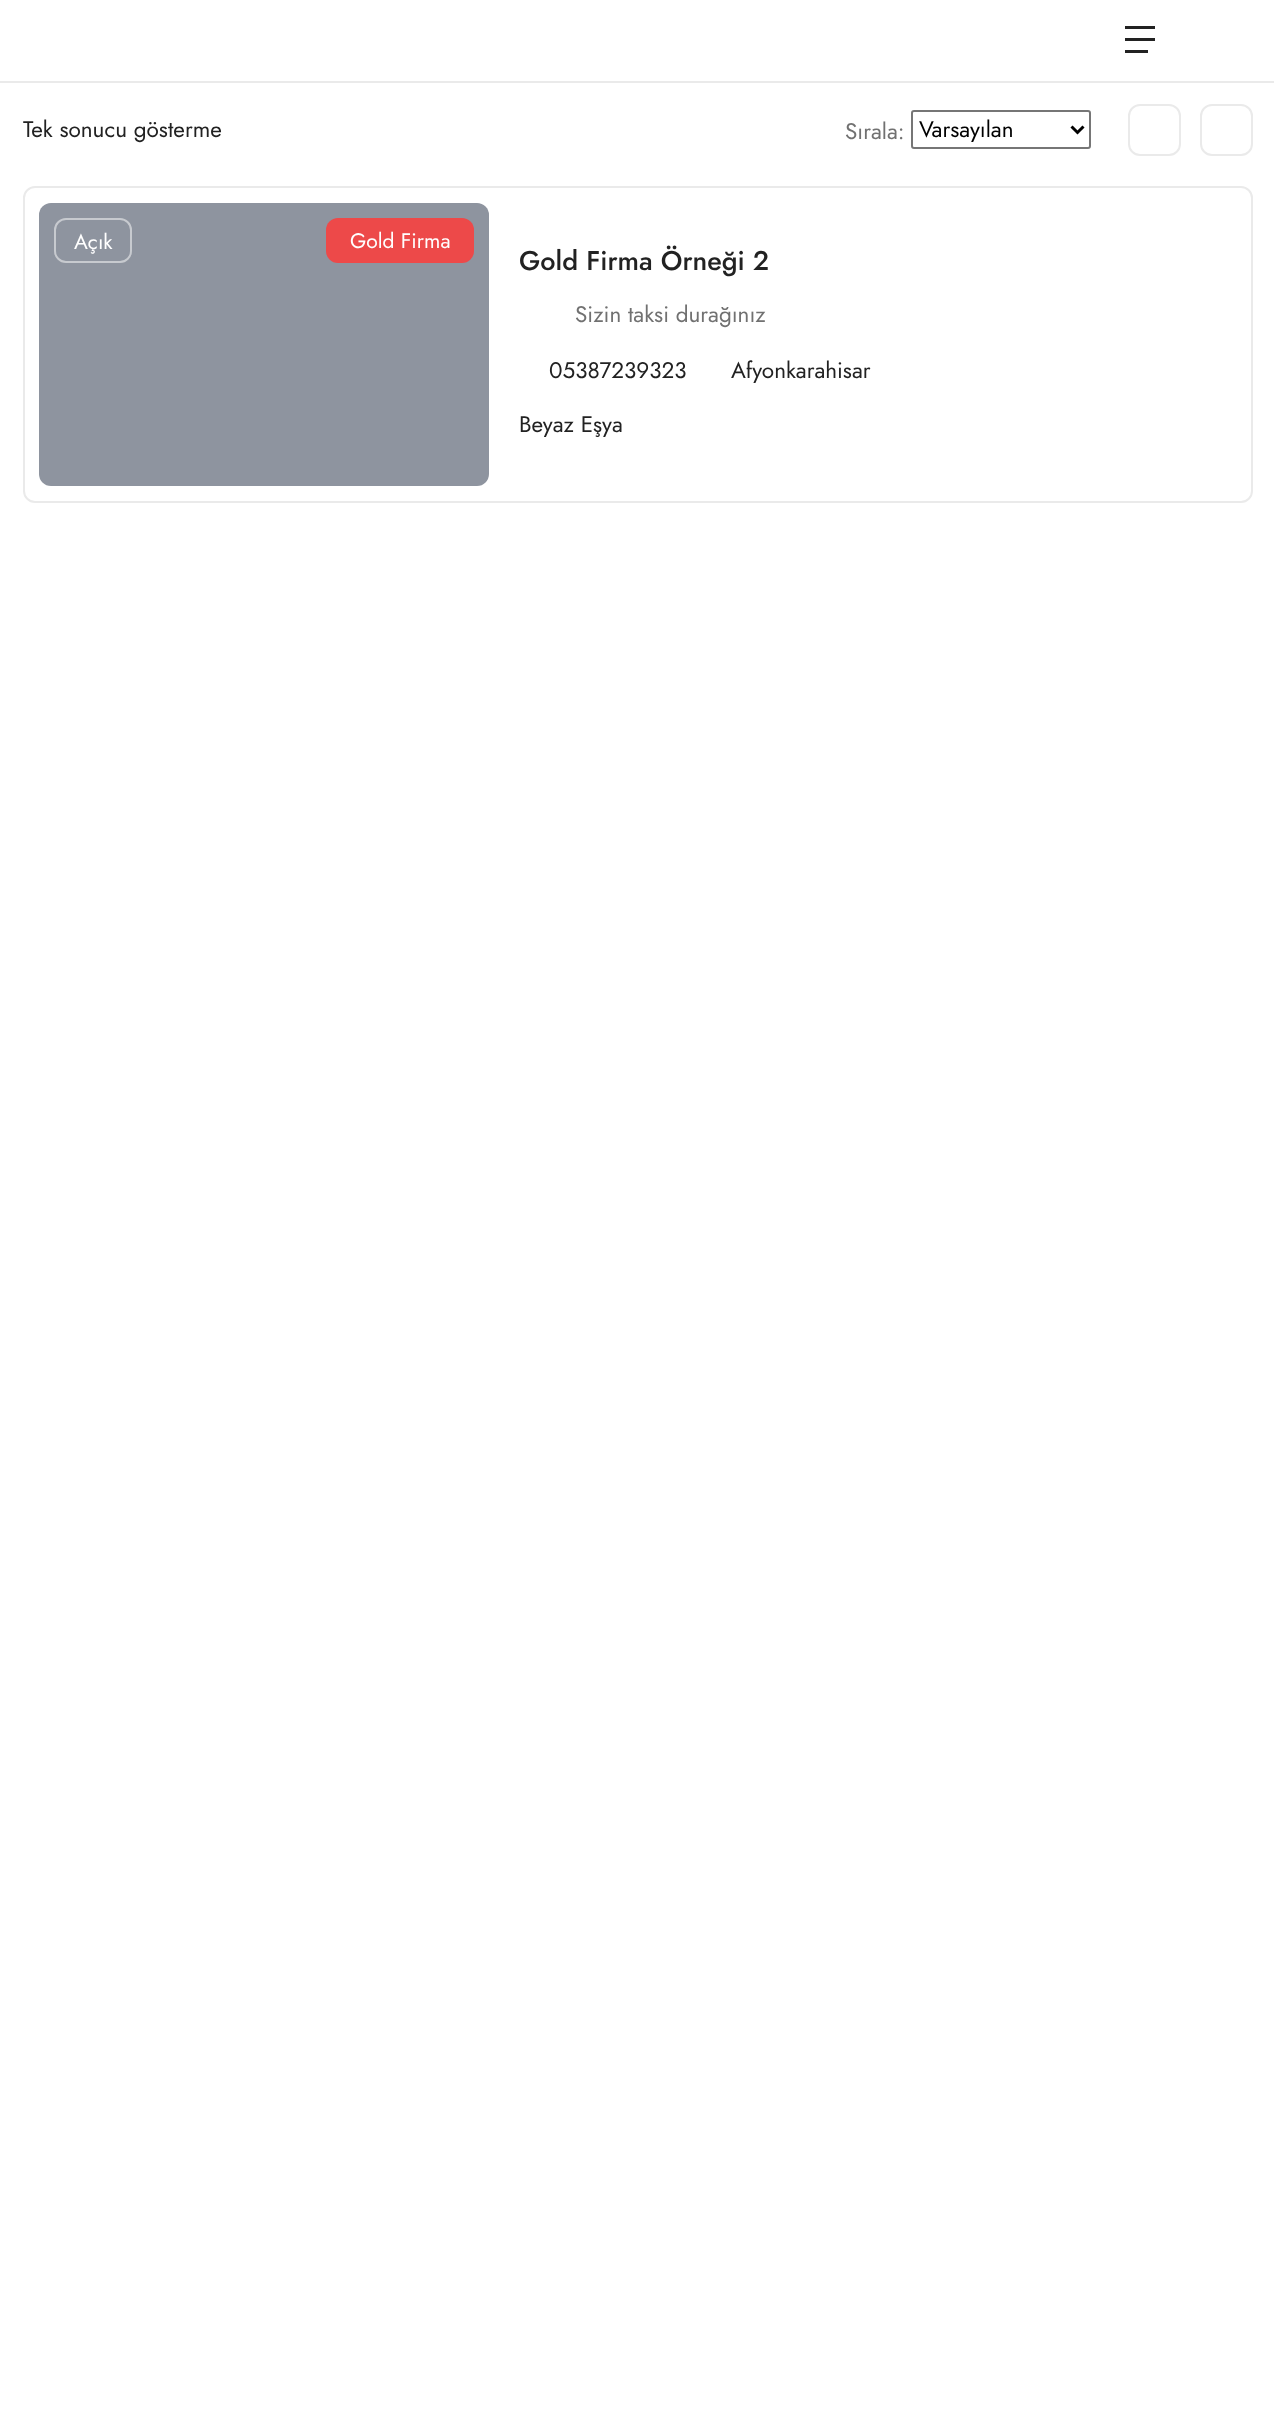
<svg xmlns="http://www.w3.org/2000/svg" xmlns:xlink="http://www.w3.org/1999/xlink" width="1274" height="2413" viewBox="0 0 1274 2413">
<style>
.cls-1{font:22.5px Jost;fill:#222222}
.cls-2{font:22.5px Jost;fill:#717171}
.cls-3{font:22.5px Jost;fill:#000000}
.cls-4{font:21px Jost;fill:#ffffff}
.cls-5{font:500 27px Jost;fill:#222222}
</style>
<rect width="100%" height="100%" fill="#ffffff"/>
<rect fill="#eaeaea" x="0" y="81" width="1274" height="2"/>
<rect fill="#222222" x="1125" y="26" width="30" height="3"/>
<rect fill="#222222" x="1125" y="38" width="30" height="3"/>
<rect fill="#222222" x="1125" y="50" width="23" height="3"/>
<rect fill="none" stroke="#767676" stroke-width="2" x="912" y="111" width="178" height="37" rx="2"/>
<path fill="none" stroke="#000000" stroke-width="3" d="M1071.5 126.5L1077.5 132.5L1083.5 126.5"/>
<rect fill="none" stroke="#eaeaea" stroke-width="2" x="1129" y="105" width="51" height="50" rx="11"/>
<rect fill="none" stroke="#eaeaea" stroke-width="2" x="1201" y="105" width="51" height="50" rx="11"/>
<rect fill="none" stroke="#eaeaea" stroke-width="2" x="24" y="187" width="1228" height="315" rx="11"/>
<rect fill="#8e949f" x="39" y="203" width="450" height="283" rx="12"/>
<rect fill="none" stroke="#c7cacf" stroke-width="2" x="55" y="219" width="76" height="43" rx="11"/>
<rect fill="#ed4949" x="326" y="218" width="148" height="45" rx="12"/>
<text class="cls-1" x="23" y="137">Tek sonucu gösterme</text>
<text class="cls-2" x="845" y="139">Sırala:</text>
<text class="cls-3" x="919" y="137">Varsayılan</text>
<text class="cls-4" x="74" y="249">Açık</text>
<text class="cls-4" x="350" y="248">Gold Firma</text>
<text class="cls-5" x="519" y="270">Gold Firma Örneği 2</text>
<text class="cls-2" x="575" y="322">Sizin taksi durağınız</text>
<text class="cls-1" x="549" y="378">05387239323</text>
<text class="cls-1" x="731" y="378">Afyonkarahisar</text>
<text class="cls-1" x="519" y="432">Beyaz Eşya</text>
</svg>
